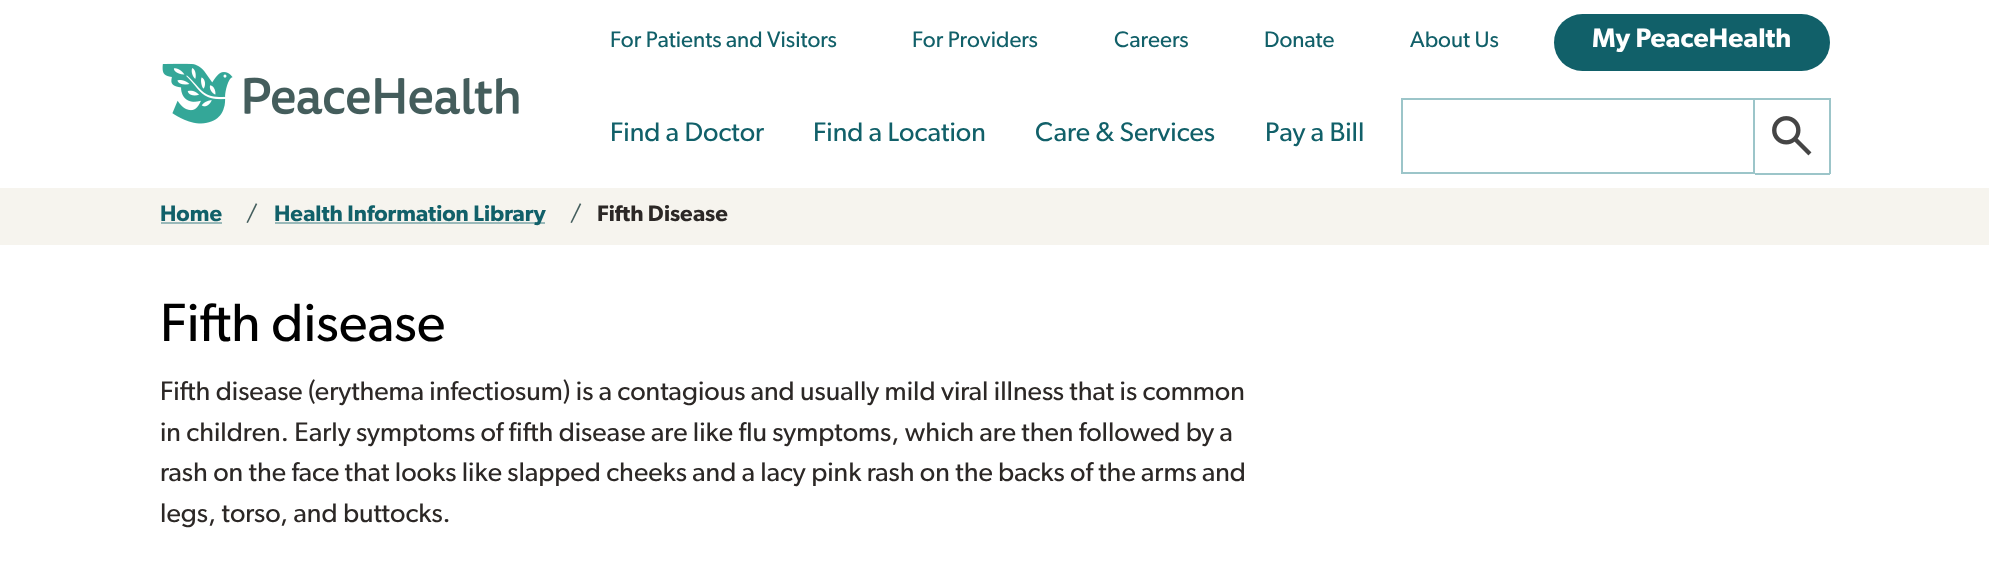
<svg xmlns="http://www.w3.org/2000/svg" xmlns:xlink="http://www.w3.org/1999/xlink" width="1989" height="576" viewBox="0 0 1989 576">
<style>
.cls-1{font:22.5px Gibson;fill:#116069}
.cls-2{font:600 27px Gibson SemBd;fill:#ffffff}
.cls-3{font:27px Gibson;fill:#116069}
.cls-4{font:600 22.5px Gibson SemBd;fill:#116069}
.cls-5{font:22.5px Gibson;fill:#455f5e}
.cls-6{font:600 22.5px Gibson SemBd;fill:#2c2826}
.cls-7{font:54px Gibson;fill:#000000}
.cls-8{font:27px Gibson;fill:#2c2826}
</style>
<rect width="100%" height="100%" fill="#ffffff"/>
<rect fill="#116069" x="1554" y="14" width="276" height="57" rx="28.5"/>
<image xlink:href="image0.png" x="162" y="63" width="357" height="61"/>
<rect fill="none" stroke="#9cc5c9" stroke-width="2" x="1402" y="99" width="352" height="74"/>
<rect fill="#9cc5c9" x="1755" y="98" width="75" height="2"/>
<rect fill="#9cc5c9" x="1829" y="98" width="2" height="76"/>
<rect fill="#9cc5c9" x="1755" y="173" width="75" height="2"/>
<image xlink:href="image1.png" x="1772" y="116" width="40" height="40"/>
<rect fill="#f6f4ee" x="0" y="188" width="1989" height="57"/>
<rect fill="#9ab9b9" x="161" y="222" width="61" height="2"/>
<rect fill="#9ab9b9" x="275" y="222" width="270" height="2"/>
<text class="cls-1" x="610" y="47">For Patients and Visitors</text>
<text class="cls-1" x="912" y="47">For Providers</text>
<text class="cls-1" x="1114" y="47">Careers</text>
<text class="cls-1" x="1264" y="47">Donate</text>
<text class="cls-1" x="1410" y="47">About Us</text>
<text class="cls-2" x="1592" y="47">My PeaceHealth</text>
<text class="cls-3" x="610" y="141">Find a Doctor</text>
<text class="cls-3" x="813" y="141">Find a Location</text>
<text class="cls-3" x="1035" y="141">Care &amp; Services</text>
<text class="cls-3" x="1265" y="141">Pay a Bill</text>
<text class="cls-4" x="160" y="221">Home</text>
<text class="cls-5" x="246" y="221">/</text>
<text class="cls-4" x="274" y="221">Health Information Library</text>
<text class="cls-5" x="570" y="221">/</text>
<text class="cls-6" x="597" y="221">Fifth Disease</text>
<text class="cls-7" x="160" y="341">Fifth disease</text>
<text class="cls-8"><tspan x="160" y="400">Fifth disease (erythema infectiosum) is a contagious and usually mild viral illness that is common</tspan><tspan x="160" y="441">in children. Early symptoms of fifth disease are like flu symptoms, which are then followed by a</tspan><tspan x="160" y="481">rash on the face that looks like slapped cheeks and a lacy pink rash on the backs of the arms and</tspan><tspan x="160" y="522">legs, torso, and buttocks.</tspan></text>
</svg>
